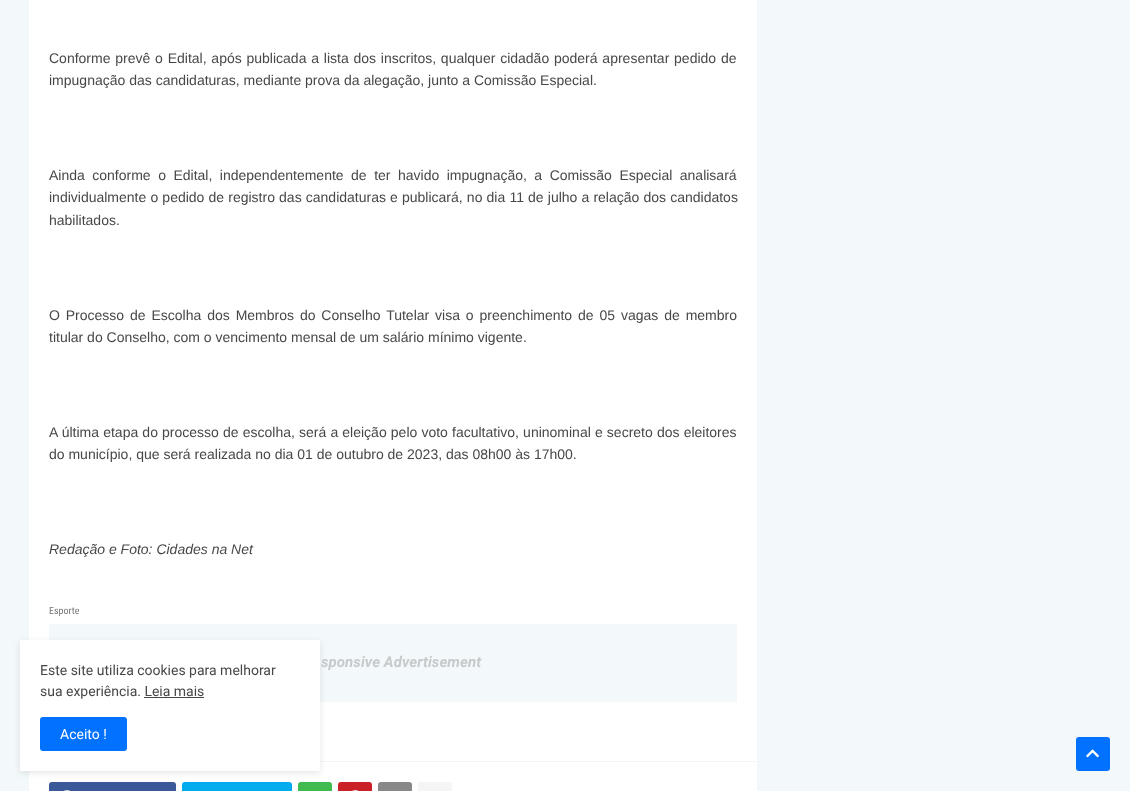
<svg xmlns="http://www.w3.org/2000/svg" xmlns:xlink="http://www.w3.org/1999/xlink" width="1130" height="791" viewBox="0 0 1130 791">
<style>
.cls-1{font:14px Liberation Sans;fill:#47474a}
.cls-2{font:italic 14px Liberation Sans;fill:#47474a}
.cls-3{font:10px Roboto Condensed;fill:#76767a}
.cls-4{font:italic bold 15px Roboto;fill:#c7cacb}
.cls-5{font:14px Roboto;fill:#47474a}
.cls-6{font:14px Roboto;fill:#ffffff}
</style>
<rect width="100%" height="100%" fill="#f3f8fb"/>
<rect fill="#ffffff" x="29" y="0" width="728" height="791"/>
<rect fill="#f3f8fb" x="49" y="624" width="688" height="78"/>
<rect fill="#f5f5f5" x="320" y="761" width="437" height="1"/>
<rect fill="#3b5999" x="49" y="782" width="127" height="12" rx="3"/>
<image xlink:href="image0.png" x="63" y="790" width="8" height="1"/>
<rect fill="#00acee" x="182" y="782" width="110" height="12" rx="3"/>
<rect fill="#3fbb50" x="298" y="782" width="34" height="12" rx="3"/>
<rect fill="#ca2127" x="338" y="782" width="34" height="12" rx="3"/>
<image xlink:href="image1.png" x="352" y="790" width="7" height="1"/>
<rect fill="#888888" x="378" y="782" width="34" height="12" rx="3"/>
<rect fill="#f5f5f5" x="418" y="782" width="34" height="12" rx="3"/>
<rect fill="#000000" fill-opacity="0.1" filter="blur(3px)" x="20" y="642" width="300" height="131"/>
<rect fill="#ffffff" x="20" y="640" width="300" height="131"/>
<rect fill="#47474a" x="144" y="697" width="60" height="1"/>
<rect fill="#0072ff" x="40" y="717" width="87" height="34" rx="3"/>
<rect fill="#0072ff" x="1076" y="737" width="34" height="34" rx="3"/>
<image xlink:href="image2.png" x="1086" y="749" width="13" height="9"/>
<text class="cls-1"><tspan x="49" y="63" word-spacing="0.9">Conforme prevê o Edital, após publicada a lista dos inscritos, qualquer cidadão poderá apresentar pedido de</tspan><tspan x="49" y="85">impugnação das candidaturas, mediante prova da alegação, junto a Comissão Especial.</tspan></text>
<text class="cls-1"><tspan x="49" y="180" word-spacing="3.6">Ainda conforme o Edital, independentemente de ter havido impugnação, a Comissão Especial analisará</tspan><tspan x="49" y="202" word-spacing="0.25">individualmente o pedido de registro das candidaturas e publicará, no dia 11 de julho a relação dos candidatos</tspan><tspan x="49" y="225">habilitados.</tspan></text>
<text class="cls-1"><tspan x="49" y="320" word-spacing="2">O Processo de Escolha dos Membros do Conselho Tutelar visa o preenchimento de 05 vagas de membro</tspan><tspan x="49" y="342">titular do Conselho, com o vencimento mensal de um salário mínimo vigente.</tspan></text>
<text class="cls-1"><tspan x="49" y="437" word-spacing="0.25">A última etapa do processo de escolha, será a eleição pelo voto facultativo, uninominal e secreto dos eleitores</tspan><tspan x="49" y="459">do município, que será realizada no dia 01 de outubro de 2023, das 08h00 às 17h00.</tspan></text>
<text class="cls-2" x="49" y="554">Redação e Foto: Cidades na Net</text>
<text class="cls-3" x="49" y="614">Esporte</text>
<text class="cls-4" x="321" y="667">sponsive Advertisement</text>
<text class="cls-5"><tspan x="40" y="675">Este site utiliza cookies para melhorar</tspan><tspan x="40" y="696">sua experiência. Leia mais</tspan></text>
<text class="cls-6" x="60" y="739">Aceito !</text>
</svg>
